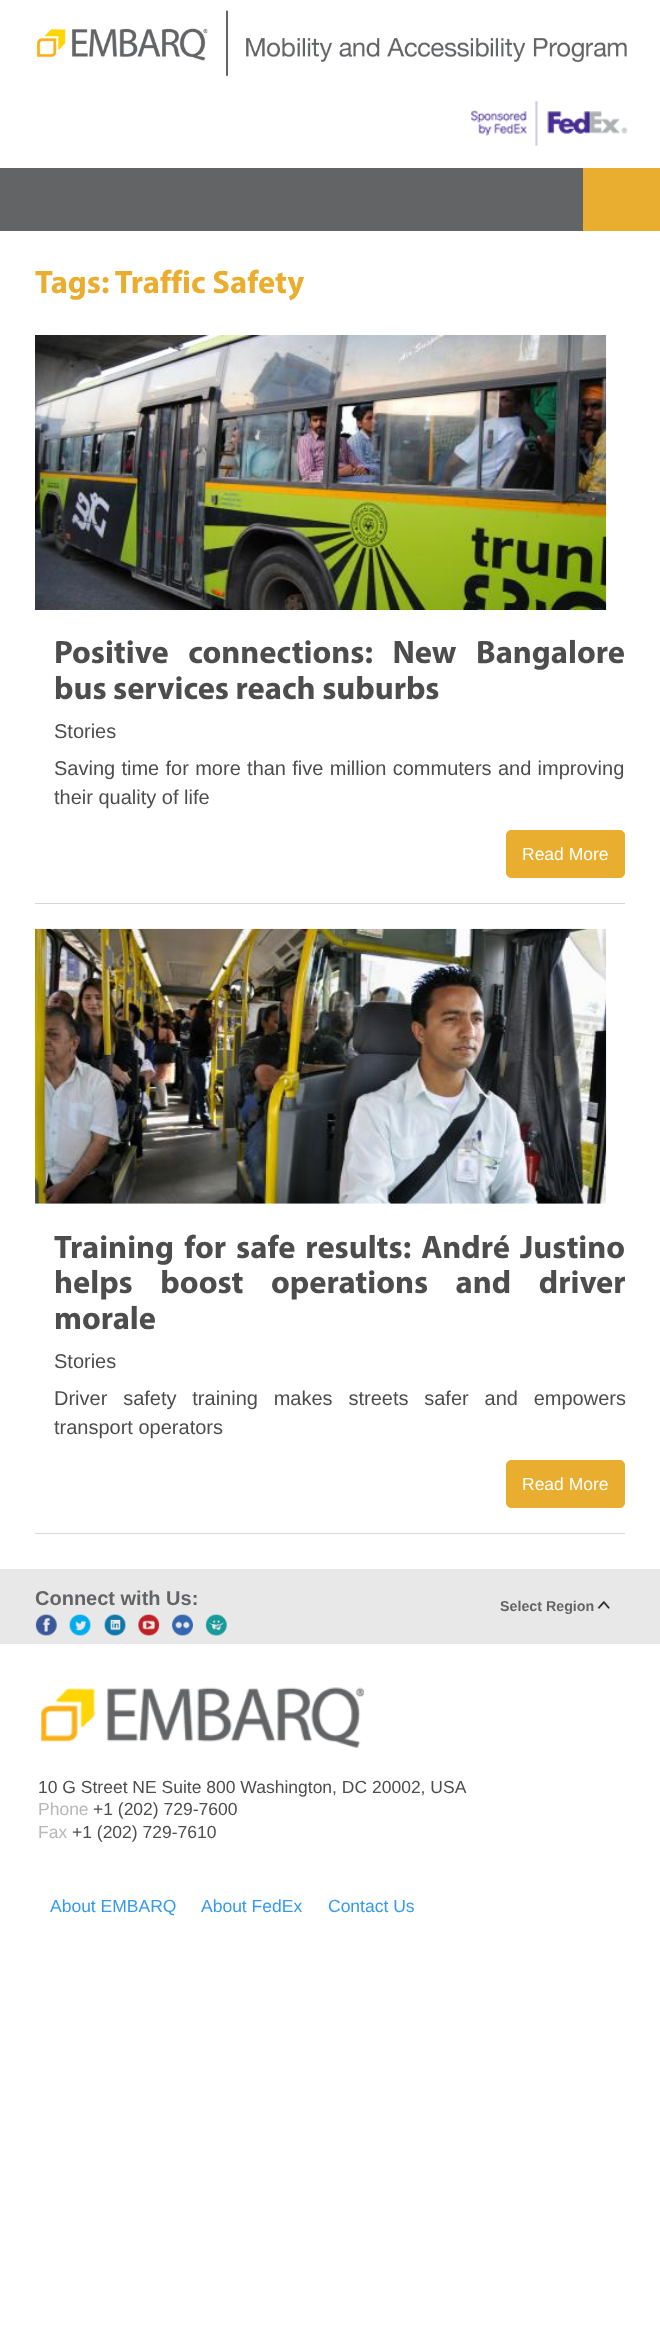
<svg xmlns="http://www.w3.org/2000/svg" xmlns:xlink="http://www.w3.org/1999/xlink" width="660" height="2335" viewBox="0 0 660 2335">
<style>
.cls-1{font:bold 32.5px Myriad;fill:#e9ae30}
.cls-2{font:bold 32.5px Myriad;fill:#4d4d4d}
.cls-3{font:20px Liberation Sans;fill:#4d4d4d}
.cls-4{font:17.5px Liberation Sans;fill:#ffffff}
.cls-5{font:bold 20px Liberation Sans;fill:#636466}
.cls-6{font:bold 14.25px Liberation Sans;fill:#636466}
.cls-7{font:17.5px Liberation Sans;fill:#4d4d4d}
.cls-8{font:17.5px Liberation Sans;fill:#b7b8b9}
.cls-9{font:17.5px Liberation Sans;fill:#3399f3}
</style>
<rect width="100%" height="100%" fill="#ffffff"/>
<image xlink:href="image0.png" x="37" y="10" width="590" height="66"/>
<image xlink:href="image1.png" x="471" y="101" width="157" height="46"/>
<rect fill="#636466" x="0" y="168" width="583" height="63"/>
<rect fill="#e9ae30" x="583" y="168" width="77" height="63"/>
<rect fill="#d7d7d7" x="35" y="903" width="590" height="1"/>
<image xlink:href="image2.png" x="35" y="335" width="572" height="275"/>
<rect fill="#e9ae30" stroke="#e9ae30" x="506.5" y="830.5" width="118" height="47" rx="4.5"/>
<rect fill="#d7d7d7" x="35" y="1533" width="590" height="1"/>
<image xlink:href="image3.png" x="35" y="928" width="572" height="276"/>
<rect fill="#e9ae30" stroke="#e9ae30" x="506.5" y="1460.5" width="118" height="47" rx="4.5"/>
<rect fill="#e8e8e8" x="0" y="1570" width="660" height="74"/>
<rect fill="#e5e5e5" x="0" y="1569" width="660" height="1"/>
<image xlink:href="image4.png" x="35" y="1614" width="22" height="22"/>
<image xlink:href="image5.png" x="69" y="1614" width="22" height="22"/>
<image xlink:href="image6.png" x="104" y="1614" width="22" height="22"/>
<image xlink:href="image7.png" x="138" y="1614" width="22" height="22"/>
<image xlink:href="image8.png" x="172" y="1614" width="21" height="22"/>
<image xlink:href="image9.png" x="205" y="1614" width="22" height="22"/>
<image xlink:href="image10.png" x="597" y="1600" width="13" height="9"/>
<image xlink:href="image11.png" x="41" y="1687" width="323" height="61"/>
<text class="cls-1" x="35" y="293">Tags: Traffic Safety</text>
<text class="cls-2"><tspan x="54" y="663" word-spacing="13">Positive connections: New Bangalore</tspan><tspan x="54" y="699">bus services reach suburbs</tspan></text>
<text class="cls-3"><tspan x="54" y="738">Stories</tspan><tspan x="54" y="775" word-spacing="0.75">Saving time for more than five million commuters and improving</tspan><tspan x="54" y="804">their quality of life</tspan></text>
<text class="cls-4" x="522" y="860">Read More</text>
<text class="cls-2"><tspan x="54" y="1258" word-spacing="3.5">Training for safe results: André Justino</tspan><tspan x="54" y="1293" word-spacing="21">helps boost operations and driver</tspan><tspan x="54" y="1329">morale</tspan></text>
<text class="cls-3"><tspan x="54" y="1368">Stories</tspan><tspan x="54" y="1405" word-spacing="10.25">Driver safety training makes streets safer and empowers</tspan><tspan x="54" y="1434">transport operators</tspan></text>
<text class="cls-4" x="522" y="1490">Read More</text>
<text class="cls-5" x="35" y="1605">Connect with Us:</text>
<text class="cls-6" x="500" y="1611">Select Region</text>
<text class="cls-7" x="38" y="1793">10 G Street NE Suite 800 Washington, DC 20002, USA</text>
<text class="cls-8" x="38" y="1815">Phone</text>
<text class="cls-7" x="93" y="1815">+1 (202) 729-7600</text>
<text class="cls-8" x="38" y="1838">Fax</text>
<text class="cls-7" x="72" y="1838">+1 (202) 729-7610</text>
<text class="cls-9" x="50" y="1912">About EMBARQ</text>
<text class="cls-9" x="201" y="1912">About FedEx</text>
<text class="cls-9" x="328" y="1912">Contact Us</text>
</svg>
